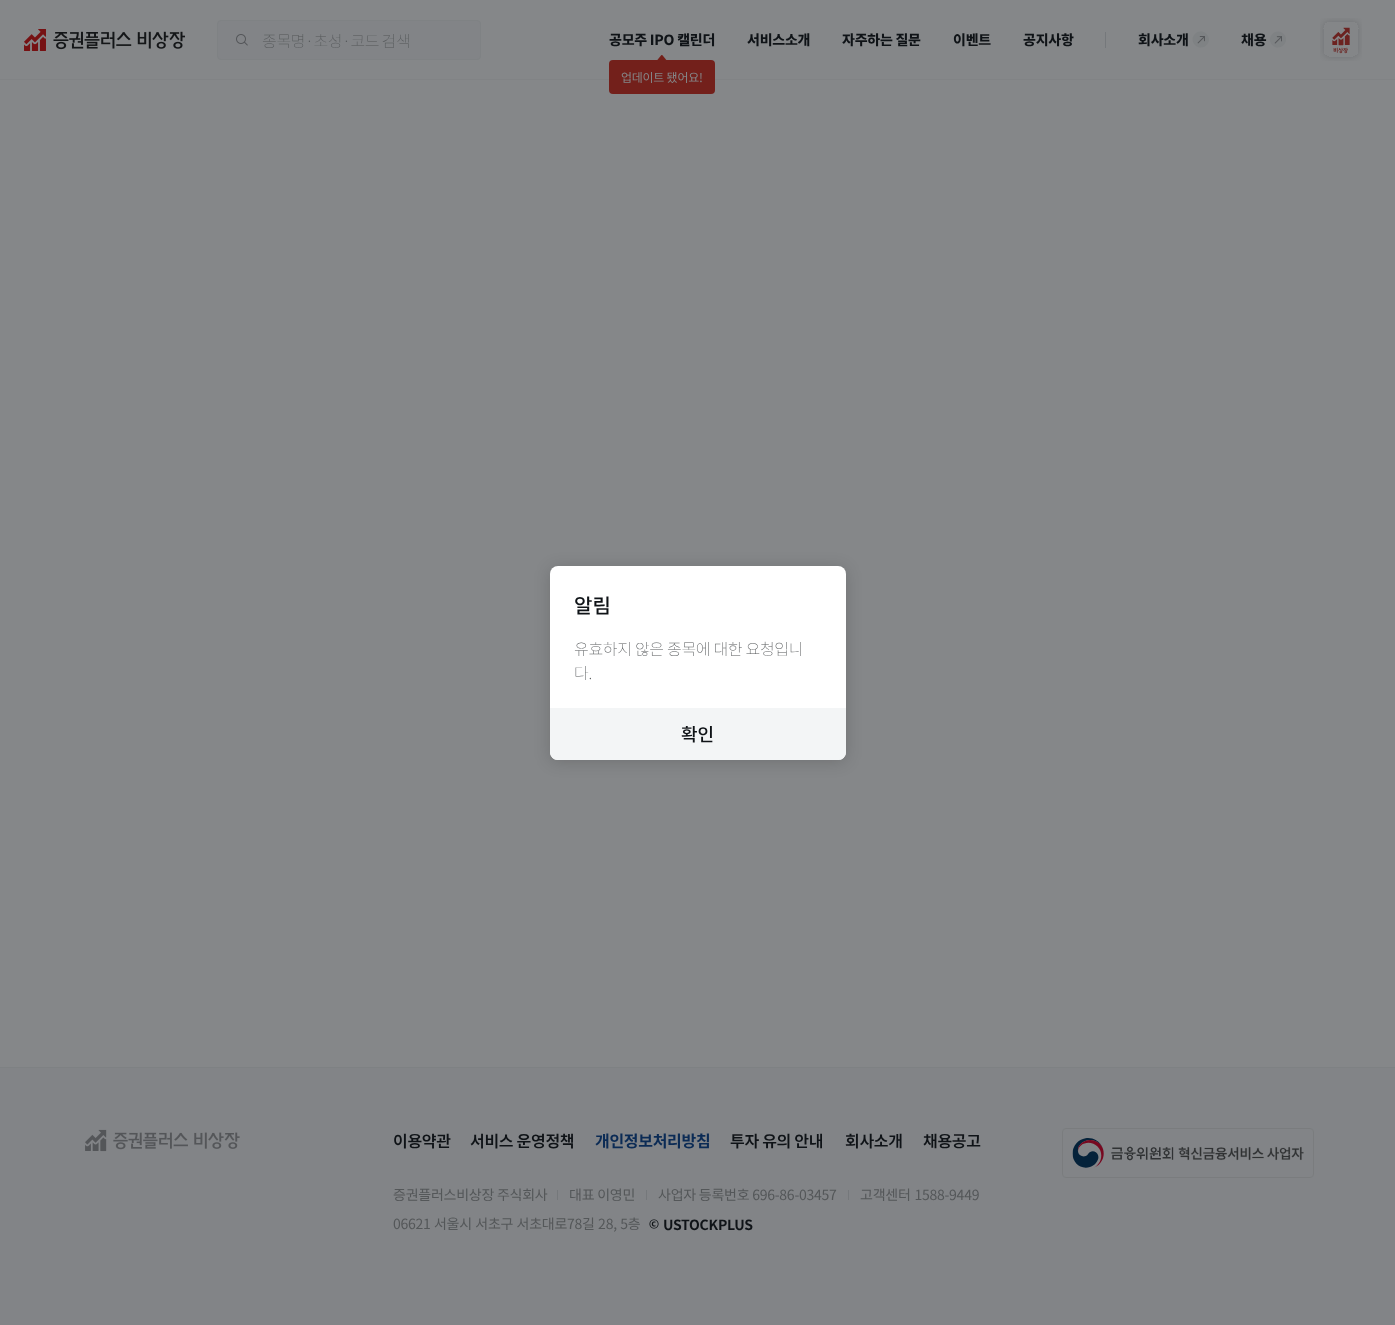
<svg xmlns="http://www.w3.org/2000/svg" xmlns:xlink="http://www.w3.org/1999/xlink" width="1395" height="1325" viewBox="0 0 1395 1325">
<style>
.cls-1{font:100 16px Noto Sans KR;letter-spacing:-0.3px;fill:#545759}
.cls-2{font:800 14px Noto Sans KR;letter-spacing:-0.25px;fill:#0f1317}
.cls-3{font:12px Noto Sans KR;letter-spacing:-0.25px;fill:#858789}
.cls-4{font:600 16px Noto Sans KR;letter-spacing:-0.3px;fill:#0f1317}
.cls-5{font:bold 16px Noto Sans KR;letter-spacing:-0.3px;fill:#0b2b55}
.cls-6{font:14px Noto Sans KR;letter-spacing:-0.25px;fill:#545759}
.cls-7{font:bold 14px Noto Sans KR;letter-spacing:-0.25px;fill:#0f1317}
.cls-8{font:500 20px Noto Sans KR;fill:#0f1317}
.cls-9{font:500 18px Noto Sans KR;fill:#0f1317}
</style>
<rect width="100%" height="100%" fill="#858789"/>
<rect fill="#818385" x="0" y="79" width="1395" height="1"/>
<image xlink:href="image0.png" x="24" y="29" width="161" height="22"/>
<rect fill="#828487" stroke="#7f8284" x="217.5" y="20.5" width="263" height="39" rx="3.5"/>
<image xlink:href="image1.png" x="236" y="34" width="12" height="12"/>
<rect fill="#73201b" x="609" y="60" width="106" height="34" rx="4"/>
<image xlink:href="image2.png" x="657" y="55" width="10" height="5"/>
<rect fill="#75787b" x="1105" y="32" width="1" height="16"/>
<path fill="#7f8284" d="M1195 34C1202.5 26.5 1214 37.5 1206.5 45C1199 52.5 1187.5 41.5 1195 34Z"/>
<image xlink:href="image3.png" x="1197" y="36" width="8" height="8"/>
<path fill="#7f8284" d="M1272.5 34C1280 26.5 1291 37.5 1283.5 45C1276 52.5 1265 41.5 1272.5 34Z"/>
<image xlink:href="image4.png" x="1274" y="36" width="8" height="8"/>
<image xlink:href="image5.png" x="1320" y="18" width="42" height="43"/>
<rect fill="#828487" x="0" y="1068" width="1395" height="257"/>
<rect fill="#7e8183" x="0" y="1067" width="1395" height="1"/>
<image xlink:href="image6.png" x="85" y="1129" width="155" height="23"/>
<rect fill="#75787b" x="557" y="1190" width="1" height="10"/>
<rect fill="#75787b" x="646" y="1190" width="1" height="10"/>
<rect fill="#75787b" x="848" y="1190" width="1" height="10"/>
<image xlink:href="image7.png" x="649" y="1219" width="10" height="10"/>
<image xlink:href="image8.png" x="1062" y="1128" width="252" height="50"/>
<rect fill="#000000" fill-opacity="0.16" filter="blur(8px)" x="550" y="568" width="296" height="194" rx="8"/>
<rect fill="#ffffff" x="550" y="566" width="296" height="194" rx="8"/>
<path fill="#f3f5f6" d="M550 708H846V752C846 756.5 842.5 760 838 760H558C553.5 760 550 756.5 550 752Z"/>
<text class="cls-1" x="262" y="47" word-spacing="-1">종목명·초성·코드 검색</text>
<text class="cls-2" x="609" y="45">공모주 IPO 캘린더</text>
<text class="cls-3" x="621" y="82">업데이트 됐어요!</text>
<text class="cls-2" x="747" y="45">서비스소개</text>
<text class="cls-2" x="842" y="45">자주하는 질문</text>
<text class="cls-2" x="953" y="45">이벤트</text>
<text class="cls-2" x="1023" y="45">공지사항</text>
<text class="cls-2" x="1138" y="45">회사소개</text>
<text class="cls-2" x="1241" y="45">채용</text>
<text class="cls-4" x="393" y="1147">이용약관</text>
<text class="cls-4" x="470" y="1147">서비스 운영정책</text>
<text class="cls-5" x="595" y="1147">개인정보처리방침</text>
<text class="cls-4" x="730" y="1147">투자 유의 안내</text>
<text class="cls-4" x="845" y="1147">회사소개</text>
<text class="cls-4" x="923" y="1147">채용공고</text>
<text class="cls-6" x="393" y="1200">증권플러스비상장 주식회사</text>
<text class="cls-6" x="569" y="1200">대표 이영민</text>
<text class="cls-6" x="658" y="1200">사업자 등록번호 696-86-03457</text>
<text class="cls-6" x="860" y="1200" word-spacing="1">고객센터 1588-9449</text>
<text class="cls-6" x="393" y="1229" word-spacing="0.5">06621 서울시 서초구 서초대로78길 28, 5층</text>
<text class="cls-7" x="663" y="1230">USTOCKPLUS</text>
<text class="cls-8" x="574" y="613">알림</text>
<text class="cls-1"><tspan x="574" y="655">유효하지 않은 종목에 대한 요청입니</tspan><tspan x="574" y="679">다.</tspan></text>
<text class="cls-9" x="681" y="741">확인</text>
</svg>
